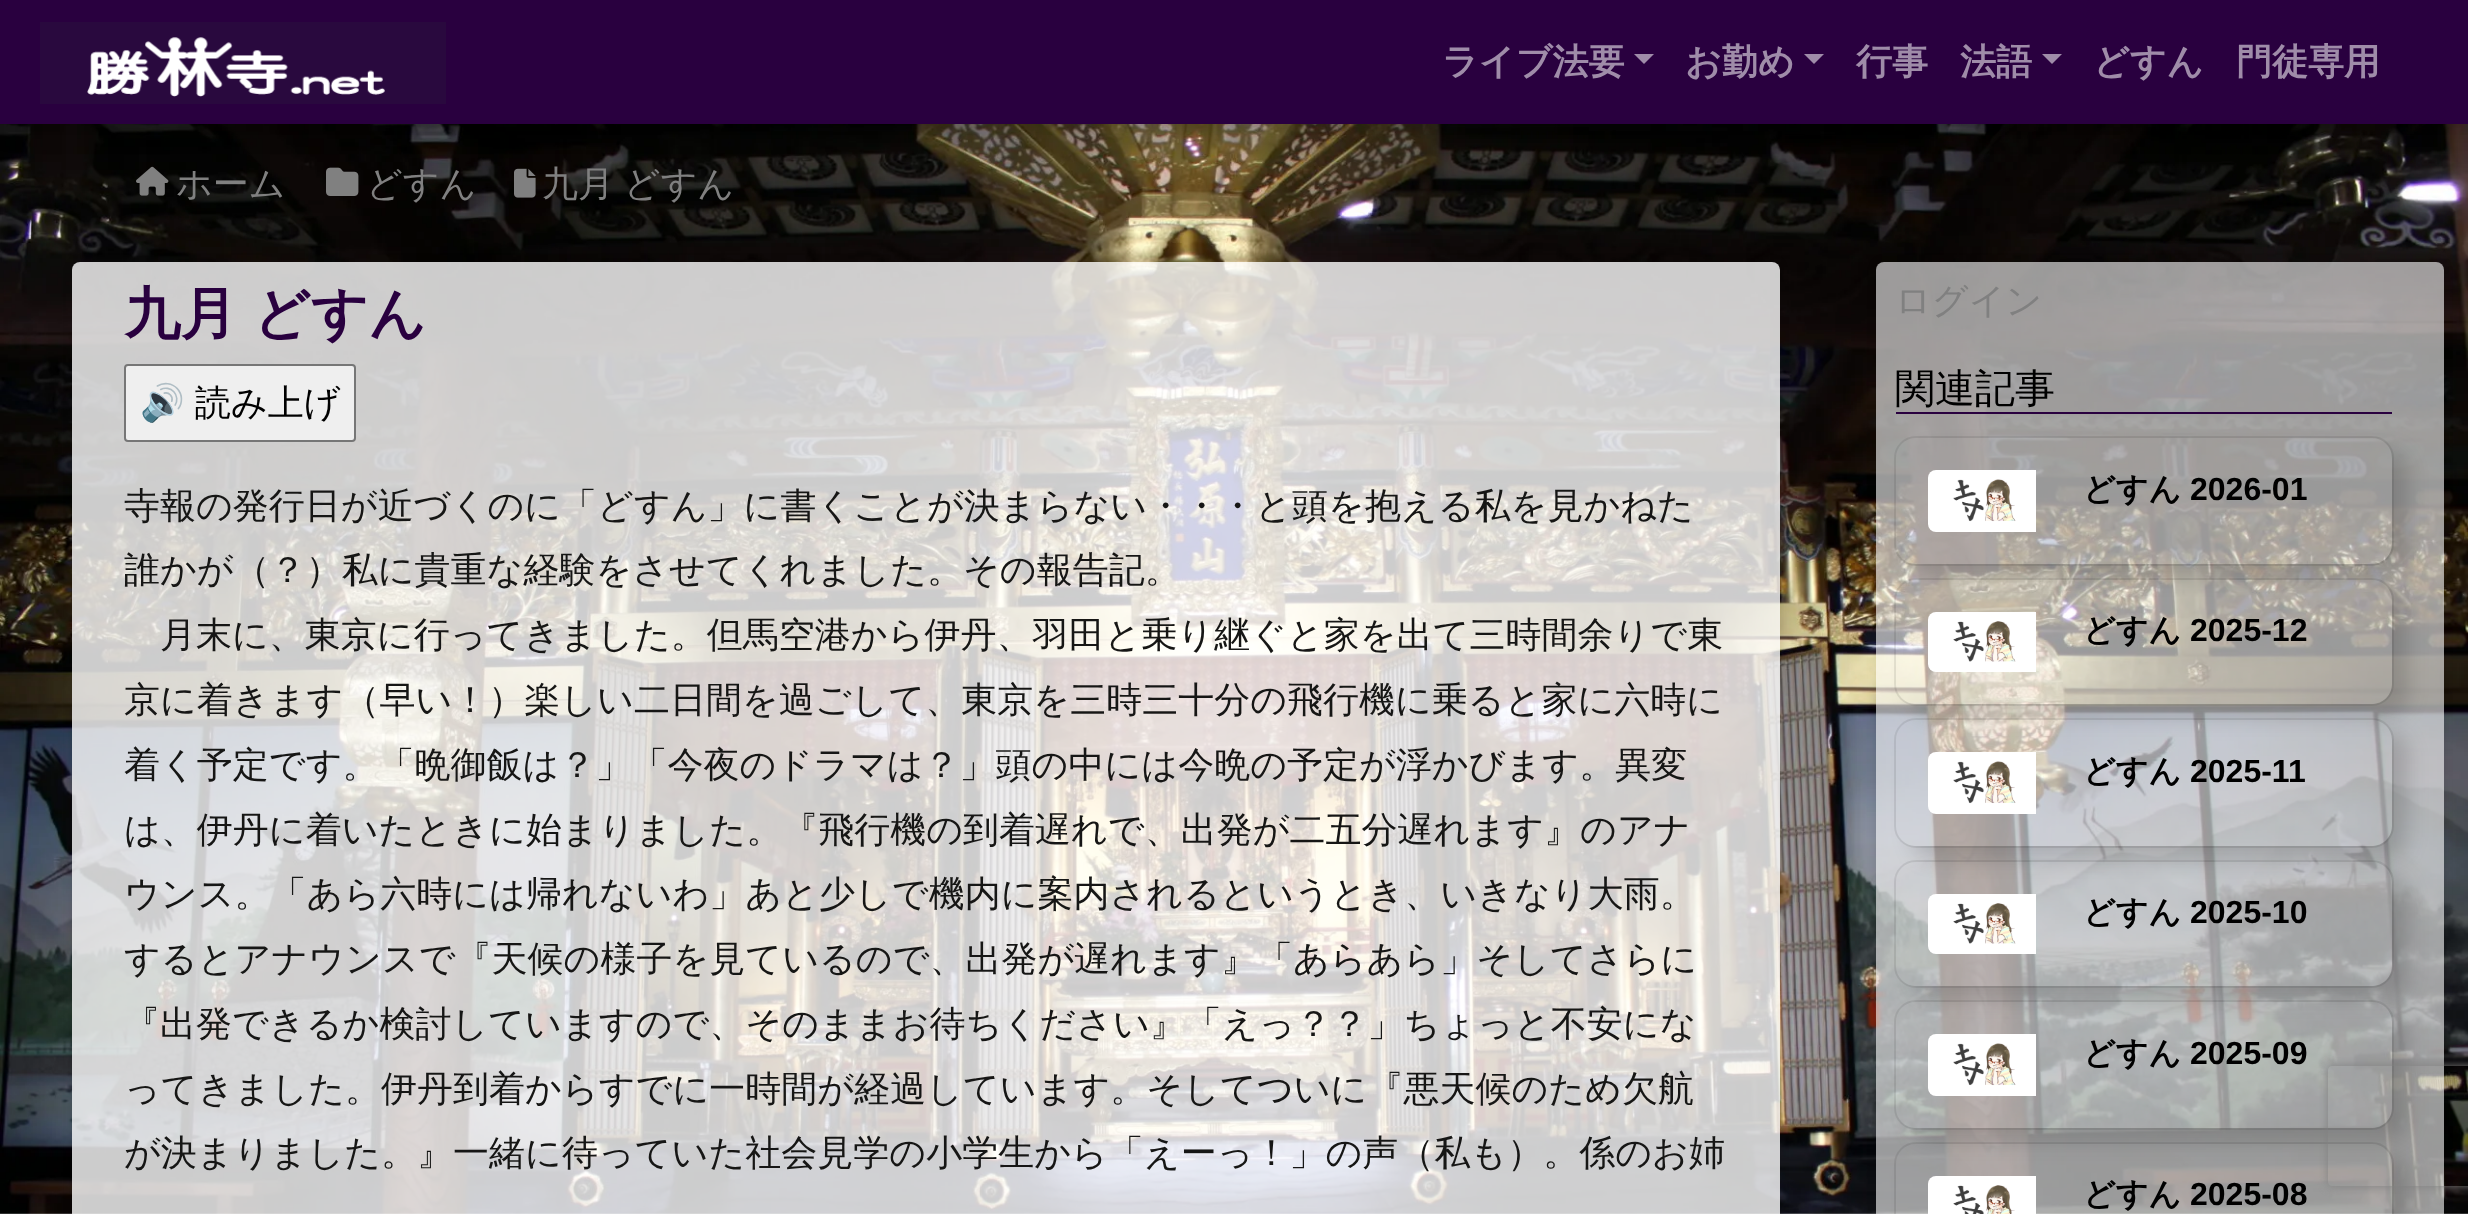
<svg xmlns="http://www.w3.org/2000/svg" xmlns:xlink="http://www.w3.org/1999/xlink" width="2468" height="1214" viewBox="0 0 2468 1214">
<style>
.cls-1{font:bold 36px WenQuanYi Zen Hei;fill:#9f8ca9}
.cls-2{font:500 36px WenQuanYi Zen Hei;fill:#808080}
.cls-3{font:bold 56.5px WenQuanYi Zen Hei;fill:#29003f}
.cls-4{font:36px Noto Color Emoji;fill:#000000}
.cls-5{font:500 36px WenQuanYi Zen Hei;fill:#000000}
.cls-6{font:500 36px WenQuanYi Zen Hei;fill:#161615}
.cls-7{font:500 40px WenQuanYi Zen Hei;fill:#000000}
.cls-8{font:bold 32px WenQuanYi Zen Hei;fill:#000000}
.cls-9{font:bold 32px Liberation Sans;fill:#000000}
</style>
<defs>
<clipPath id="clip1"><path d="M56 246H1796V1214H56ZM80 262H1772C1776.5 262 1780 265.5 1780 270V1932C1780 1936.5 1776.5 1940 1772 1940H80C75.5 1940 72 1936.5 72 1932V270C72 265.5 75.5 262 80 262Z" clip-rule="evenodd"/></clipPath>
<clipPath id="clip2"><path d="M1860 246H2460V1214H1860ZM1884 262H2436C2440.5 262 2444 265.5 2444 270V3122C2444 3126.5 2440.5 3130 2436 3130H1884C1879.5 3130 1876 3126.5 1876 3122V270C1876 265.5 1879.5 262 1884 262Z" clip-rule="evenodd"/></clipPath>
<clipPath id="clip3"><path d="M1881 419H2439V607H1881ZM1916 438H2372C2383 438 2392 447 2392 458V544C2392 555 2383 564 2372 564H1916C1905 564 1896 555 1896 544V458C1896 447 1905 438 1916 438Z" clip-rule="evenodd"/></clipPath>
<clipPath id="clip4"><path d="M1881 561H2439V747H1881ZM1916 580H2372C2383 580 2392 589 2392 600V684C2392 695 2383 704 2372 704H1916C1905 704 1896 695 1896 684V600C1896 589 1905 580 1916 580Z" clip-rule="evenodd"/></clipPath>
<clipPath id="clip5"><path d="M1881 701H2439V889H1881ZM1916 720H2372C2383 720 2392 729 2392 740V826C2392 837 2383 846 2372 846H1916C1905 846 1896 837 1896 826V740C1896 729 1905 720 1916 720Z" clip-rule="evenodd"/></clipPath>
<clipPath id="clip6"><path d="M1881 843H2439V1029H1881ZM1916 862H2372C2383 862 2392 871 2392 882V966C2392 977 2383 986 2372 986H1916C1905 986 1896 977 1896 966V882C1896 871 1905 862 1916 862Z" clip-rule="evenodd"/></clipPath>
<clipPath id="clip7"><path d="M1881 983H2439V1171H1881ZM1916 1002H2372C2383 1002 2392 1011 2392 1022V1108C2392 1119 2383 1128 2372 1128H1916C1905 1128 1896 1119 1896 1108V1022C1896 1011 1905 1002 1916 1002Z" clip-rule="evenodd"/></clipPath>
<clipPath id="clip8"><path d="M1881 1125H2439V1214H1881ZM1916 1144H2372C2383 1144 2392 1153 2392 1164V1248C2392 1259 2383 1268 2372 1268H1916C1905 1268 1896 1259 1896 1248V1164C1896 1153 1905 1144 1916 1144Z" clip-rule="evenodd"/></clipPath>
<clipPath id="clip9"><path d="M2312 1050H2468V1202H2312ZM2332 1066H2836C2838 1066 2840 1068 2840 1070V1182C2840 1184 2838 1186 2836 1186H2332C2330 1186 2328 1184 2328 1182V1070C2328 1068 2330 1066 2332 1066Z" clip-rule="evenodd"/></clipPath>
</defs>
<rect width="100%" height="100%" fill="#ffffff"/>
<image xlink:href="image0.png" x="0" y="124" width="2468" height="1090"/>
<rect fill="#000000" fill-opacity="0.05" filter="blur(4px)" x="0" y="4" width="2468" height="124"/>
<rect fill="#000000" fill-opacity="0.07" filter="blur(12px)" x="0" y="8" width="2468" height="124"/>
<rect fill="#29003f" x="0" y="0" width="2468" height="124"/>
<image xlink:href="image1.png" x="40" y="22" width="406" height="82"/>
<path fill="#9f8ca9" d="M1634 54H1654L1644 64Z"/>
<path fill="#9f8ca9" d="M1804 54H1824L1814 64Z"/>
<path fill="#9f8ca9" d="M2042 54H2062L2052 64Z"/>
<image xlink:href="image2.png" x="136" y="166" width="33" height="30"/>
<image xlink:href="image3.png" x="326" y="167" width="33" height="29"/>
<image xlink:href="image4.png" x="514" y="168" width="22" height="30"/>
<g clip-path="url(#clip1)">
<rect fill="#000000" fill-opacity="0.1" filter="blur(5px)" x="72" y="262" width="1708" height="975" rx="8"/>
</g>
<rect fill="#ffffff" fill-opacity="0.8" x="72" y="262" width="1708" height="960" rx="8"/>
<rect fill="#efefef" stroke="#767676" stroke-width="2" x="125" y="365" width="230" height="76" rx="3"/>
<g clip-path="url(#clip2)">
<rect fill="#000000" fill-opacity="0.1" filter="blur(5px)" x="1876" y="262" width="568" height="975" rx="8"/>
</g>
<rect fill="#ffffff" fill-opacity="0.6" x="1876" y="262" width="568" height="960" rx="8"/>
<rect fill="#29003f" x="1896" y="412" width="496" height="2"/>
<rect fill="none" stroke="#000000" stroke-opacity="0.08" stroke-width="2" x="1895" y="437" width="498" height="128" rx="21"/>
<g clip-path="url(#clip3)">
<rect fill="#000000" fill-opacity="0.16" filter="blur(10px)" x="1912" y="450" width="496" height="126" rx="20"/>
</g>
<image xlink:href="image5.png" x="1928" y="470" width="108" height="62"/>
<rect fill="none" stroke="#000000" stroke-opacity="0.08" stroke-width="2" x="1895" y="579" width="498" height="126" rx="21"/>
<g clip-path="url(#clip4)">
<rect fill="#000000" fill-opacity="0.16" filter="blur(10px)" x="1912" y="592" width="496" height="124" rx="20"/>
</g>
<image xlink:href="image6.png" x="1928" y="612" width="108" height="60"/>
<rect fill="none" stroke="#000000" stroke-opacity="0.08" stroke-width="2" x="1895" y="719" width="498" height="128" rx="21"/>
<g clip-path="url(#clip5)">
<rect fill="#000000" fill-opacity="0.16" filter="blur(10px)" x="1912" y="732" width="496" height="126" rx="20"/>
</g>
<image xlink:href="image7.png" x="1928" y="752" width="108" height="62"/>
<rect fill="none" stroke="#000000" stroke-opacity="0.08" stroke-width="2" x="1895" y="861" width="498" height="126" rx="21"/>
<g clip-path="url(#clip6)">
<rect fill="#000000" fill-opacity="0.16" filter="blur(10px)" x="1912" y="874" width="496" height="124" rx="20"/>
</g>
<image xlink:href="image8.png" x="1928" y="894" width="108" height="60"/>
<rect fill="none" stroke="#000000" stroke-opacity="0.08" stroke-width="2" x="1895" y="1001" width="498" height="128" rx="21"/>
<g clip-path="url(#clip7)">
<rect fill="#000000" fill-opacity="0.16" filter="blur(10px)" x="1912" y="1014" width="496" height="126" rx="20"/>
</g>
<image xlink:href="image9.png" x="1928" y="1034" width="108" height="62"/>
<rect fill="none" stroke="#000000" stroke-opacity="0.08" stroke-width="2" x="1895" y="1143" width="498" height="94" rx="21"/>
<g clip-path="url(#clip8)">
<rect fill="#000000" fill-opacity="0.16" filter="blur(10px)" x="1912" y="1156" width="496" height="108" rx="20"/>
</g>
<image xlink:href="image10.png" x="1928" y="1176" width="108" height="38"/>
<g clip-path="url(#clip9)">
<rect fill="#808080" filter="blur(5px)" x="2328" y="1066" width="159" height="120" rx="4"/>
</g>
<text class="cls-1" x="1442" y="74">ライブ法要</text>
<text class="cls-1" x="1685" y="74">お勤め</text>
<text class="cls-1" x="1856" y="74">行事</text>
<text class="cls-1" x="1960" y="74">法語</text>
<text class="cls-1" x="2093" y="74">どすん</text>
<text class="cls-1" x="2236" y="74">門徒専用</text>
<text class="cls-2" x="176" y="196">ホーム</text>
<text class="cls-2" x="366" y="196">どすん</text>
<text class="cls-2" x="542" y="196" word-spacing="-1">九月 どすん</text>
<text class="cls-3" x="124" y="333" word-spacing="-1">九月 どすん</text>
<text class="cls-4" x="140" y="415">🔊</text>
<text class="cls-5" x="195" y="415">読み上げ</text>
<text class="cls-6"><tspan x="124" y="518">寺報の発行日が近づくのに「どすん」に書くことが決まらない・・・と頭を抱える私を見かねた</tspan><tspan x="124" y="582">誰かが（？）私に貴重な経験をさせてくれました。その報告記。</tspan></text>
<text class="cls-6" x="160" y="647">月末に、東京に行ってきました。但馬空港から伊丹、羽田と乗り継ぐと家を出て三時間余りで東</text>
<text class="cls-6"><tspan x="124" y="712">京に着きます（早い！）楽しい二日間を過ごして、東京を三時三十分の飛行機に乗ると家に六時に</tspan><tspan x="124" y="777">着く予定です。「晩御飯は？」「今夜のドラマは？」頭の中には今晩の予定が浮かびます。異変</tspan><tspan x="124" y="842">は、伊丹に着いたときに始まりました。『飛行機の到着遅れで、出発が二五分遅れます』のアナ</tspan><tspan x="124" y="906">ウンス。「あら六時には帰れないわ」あと少しで機内に案内されるというとき、いきなり大雨。</tspan><tspan x="124" y="971">するとアナウンスで『天候の様子を見ているので、出発が遅れます』「あらあら」そしてさらに</tspan><tspan x="124" y="1036">『出発できるか検討していますので、そのままお待ちください』「えっ？？」ちょっと不安にな</tspan><tspan x="124" y="1101">ってきました。伊丹到着からすでに一時間が経過しています。そしてついに『悪天候のため欠航</tspan><tspan x="124" y="1165">が決まりました。』一緒に待っていた社会見学の小学生から「えーっ！」の声（私も）。係のお姉</tspan></text>
<text class="cls-2" x="1895" y="313">ログイン</text>
<text class="cls-7" x="1895" y="402">関連記事</text>
<text class="cls-8" x="2083" y="500">どすん</text>
<text class="cls-9" x="2190" y="500">2026-01</text>
<text class="cls-8" x="2083" y="641">どすん</text>
<text class="cls-9" x="2190" y="641">2025-12</text>
<text class="cls-8" x="2083" y="782">どすん</text>
<text class="cls-9" x="2190" y="782">2025-11</text>
<text class="cls-8" x="2083" y="923">どすん</text>
<text class="cls-9" x="2190" y="923">2025-10</text>
<text class="cls-8" x="2083" y="1064">どすん</text>
<text class="cls-9" x="2190" y="1064">2025-09</text>
<text class="cls-8" x="2083" y="1205">どすん</text>
<text class="cls-9" x="2190" y="1205">2025-08</text>
</svg>
